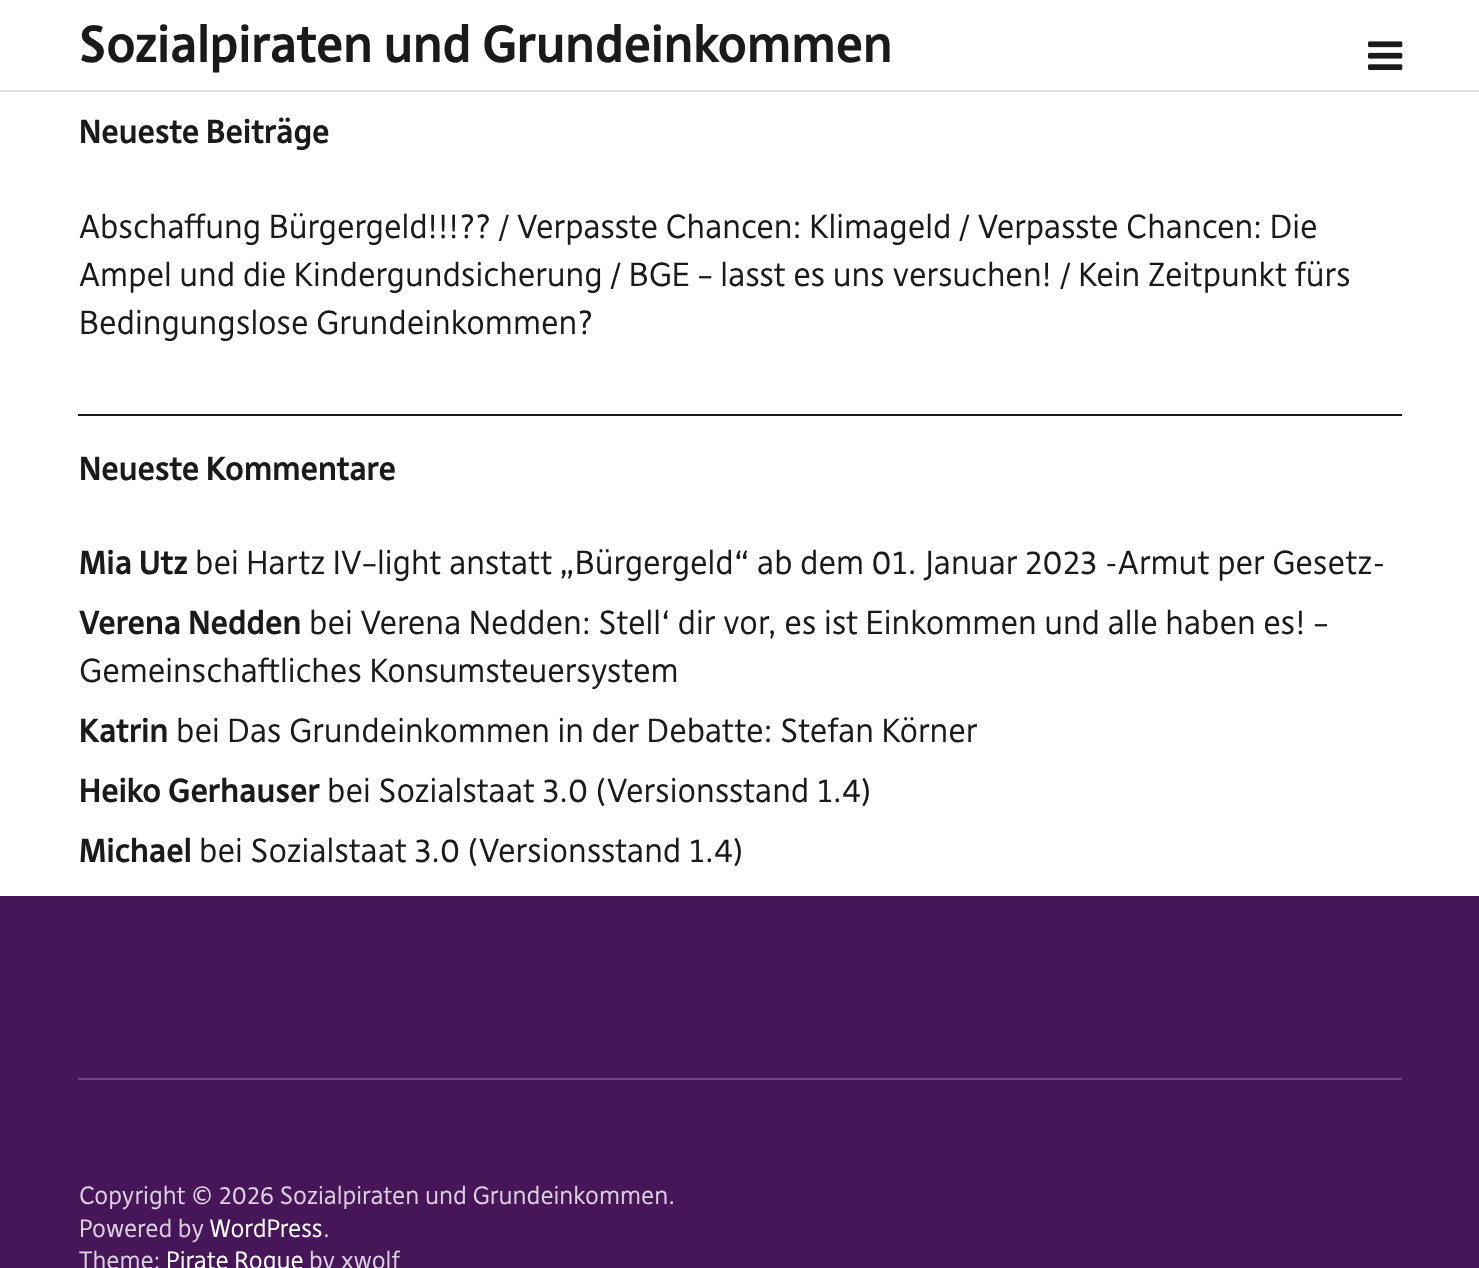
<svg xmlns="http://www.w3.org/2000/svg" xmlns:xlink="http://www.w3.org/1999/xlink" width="1479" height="1268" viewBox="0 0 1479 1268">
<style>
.cls-1{font:bold 50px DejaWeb;fill:#1a1a1a}
.cls-2{font:bold 32px DejaWeb;fill:#1a1a1a}
.cls-3{font:32px DejaWeb;fill:#1a1a1a}
.cls-4{font:24px DejaWeb;fill:#dad0de}
.cls-5{font:24px DejaWeb;fill:#ffffff}
</style>
<rect width="100%" height="100%" fill="#ffffff"/>
<rect fill="#dddddd" x="0" y="90" width="1479" height="2"/>
<image xlink:href="image0.png" x="1368" y="41" width="35" height="29"/>
<rect fill="#1a1a1a" x="78" y="414" width="1324" height="2"/>
<rect fill="#471659" x="0" y="896" width="1479" height="372"/>
<rect fill="#6c457a" x="78" y="1078" width="1324" height="2"/>
<text class="cls-1" x="79" y="62">Sozialpiraten und Grundeinkommen</text>
<text class="cls-2" x="79" y="143">Neueste Beiträge</text>
<text class="cls-3"><tspan x="79" y="238">Abschaffung Bürgergeld!!!?? / Verpasste Chancen: Klimageld / Verpasste Chancen: Die</tspan><tspan x="79" y="286">Ampel und die Kindergundsicherung / BGE – lasst es uns versuchen! / Kein Zeitpunkt fürs</tspan><tspan x="79" y="334">Bedingungslose Grundeinkommen?</tspan></text>
<text class="cls-2" x="79" y="480">Neueste Kommentare</text>
<text class="cls-2" x="79" y="574">Mia Utz</text>
<text class="cls-3" x="195" y="574">bei Hartz IV–light anstatt „Bürgergeld“ ab dem 01. Januar 2023 -Armut per Gesetz-</text>
<text class="cls-2" x="79" y="634">Verena Nedden</text>
<text class="cls-3" x="309" y="634">bei Verena Nedden: Stell‘ dir vor, es ist Einkommen und alle haben es! –</text>
<text class="cls-3" x="79" y="682">Gemeinschaftliches Konsumsteuersystem</text>
<text class="cls-2" x="79" y="742">Katrin</text>
<text class="cls-3" x="176" y="742">bei Das Grundeinkommen in der Debatte: Stefan Körner</text>
<text class="cls-2" x="79" y="802">Heiko Gerhauser</text>
<text class="cls-3" x="327" y="802">bei Sozialstaat 3.0 (Versionsstand 1.4)</text>
<text class="cls-2" x="79" y="862">Michael</text>
<text class="cls-3" x="199" y="862">bei Sozialstaat 3.0 (Versionsstand 1.4)</text>
<text class="cls-4"><tspan x="79" y="1204">Copyright © 2026 Sozialpiraten und Grundeinkommen.</tspan><tspan x="79" y="1237">Powered by</tspan></text>
<text class="cls-5" x="209" y="1237">WordPress</text>
<text class="cls-4" x="323" y="1237">.</text>
<text class="cls-4" x="79" y="1269">Theme:</text>
<text class="cls-5" x="166" y="1269">Pirate Rogue</text>
<text class="cls-4" x="309" y="1269">by xwolf</text>
</svg>
